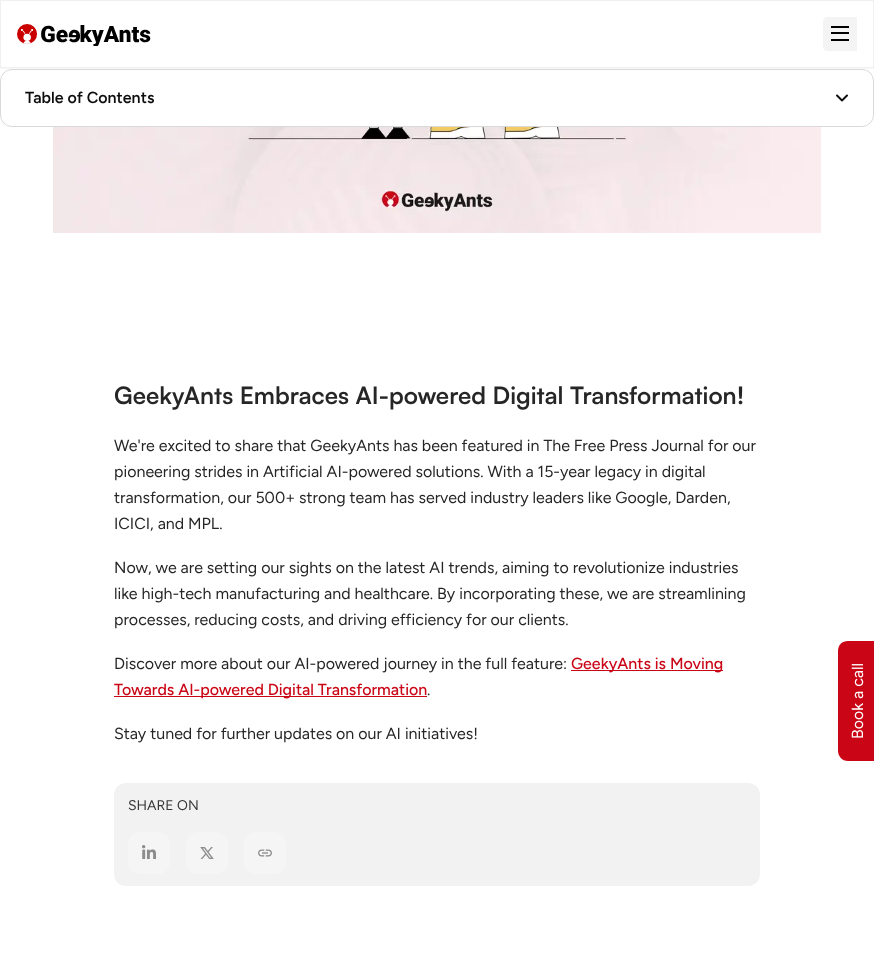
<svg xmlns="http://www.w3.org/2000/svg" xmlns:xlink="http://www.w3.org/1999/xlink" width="874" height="961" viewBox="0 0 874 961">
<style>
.cls-1{font:600 16px Figtree;fill:#0e0e0e}
.cls-2{font:600 24px Satoshi;fill:#262626}
.cls-3{font:16px Figtree;fill:#262626}
.cls-4{font:500 16px Figtree;fill:#ca0515}
.cls-5{font:14px Figtree;fill:#383737}
.cls-6{font:16px Figtree;fill:#ffffff}
</style>
<rect width="100%" height="100%" fill="#ffffff"/>
<rect fill="#f6f9f9" x="0" y="68" width="874" height="1"/>
<rect fill="none" stroke="#f0f0f0" x="0.5" y="0.5" width="873" height="67"/>
<image xlink:href="image0.png" x="17" y="24" width="134" height="22"/>
<path fill="#f4f4f4" d="M827 17H857V51H827C825 51 823 49 823 47V21C823 19 825 17 827 17Z"/>
<rect fill="#000000" x="831" y="26" width="18" height="2"/>
<rect fill="#000000" x="831" y="32" width="18" height="2"/>
<rect fill="#000000" x="831" y="39" width="18" height="2"/>
<rect fill="none" stroke="#d9d9d9" x="0.5" y="69.5" width="873" height="57" rx="11.5"/>
<image xlink:href="image1.png" x="836" y="94" width="12" height="8"/>
<rect fill="#ca0515" x="571" y="670" width="152" height="1"/>
<rect fill="#ca0515" x="114" y="696" width="313" height="1"/>
<rect fill="#f2f2f2" x="114" y="783" width="646" height="103" rx="12"/>
<rect fill="#f5f5f5" x="128" y="832" width="42" height="42" rx="12"/>
<image xlink:href="image2.png" x="142" y="845" width="14" height="14"/>
<rect fill="#f5f5f5" x="186" y="832" width="42" height="42" rx="12"/>
<image xlink:href="image3.png" x="200" y="847" width="14" height="12"/>
<rect fill="#f5f5f5" x="244" y="832" width="42" height="42" rx="12"/>
<image xlink:href="image4.png" x="258" y="849" width="14" height="8"/>
<image xlink:href="image5.png" x="53" y="127" width="768" height="106"/>
<path fill="#ca0515" d="M838 751V651C838 645 842 641 848 641H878V761H848C842 761 838 756 838 751Z"/>
<text class="cls-1" x="25" y="103">Table of Contents</text>
<text class="cls-2" x="114" y="404">GeekyAnts Embraces AI-powered Digital Transformation!</text>
<text class="cls-3"><tspan x="114" y="451">We're excited to share that GeekyAnts has been featured in The Free Press Journal for our</tspan><tspan x="114" y="477">pioneering strides in Artificial AI-powered solutions. With a 15-year legacy in digital</tspan><tspan x="114" y="503">transformation, our 500+ strong team has served industry leaders like Google, Darden,</tspan><tspan x="114" y="529">ICICI, and MPL.</tspan></text>
<text class="cls-3"><tspan x="114" y="573">Now, we are setting our sights on the latest AI trends, aiming to revolutionize industries</tspan><tspan x="114" y="599">like high-tech manufacturing and healthcare. By incorporating these, we are streamlining</tspan><tspan x="114" y="625">processes, reducing costs, and driving efficiency for our clients.</tspan></text>
<text class="cls-3" x="114" y="669">Discover more about our AI-powered journey in the full feature:</text>
<text class="cls-4" x="571" y="669">GeekyAnts is Moving</text>
<text class="cls-4" x="114" y="695">Towards AI-powered Digital Transformation</text>
<text class="cls-3" x="427" y="695">.</text>
<text class="cls-3" x="114" y="739">Stay tuned for further updates on our AI initiatives!</text>
<text class="cls-5" x="128" y="810">SHARE ON</text>
<text class="cls-6" x="863" y="739" transform="rotate(-90 863 739)">Book a call</text>
</svg>
